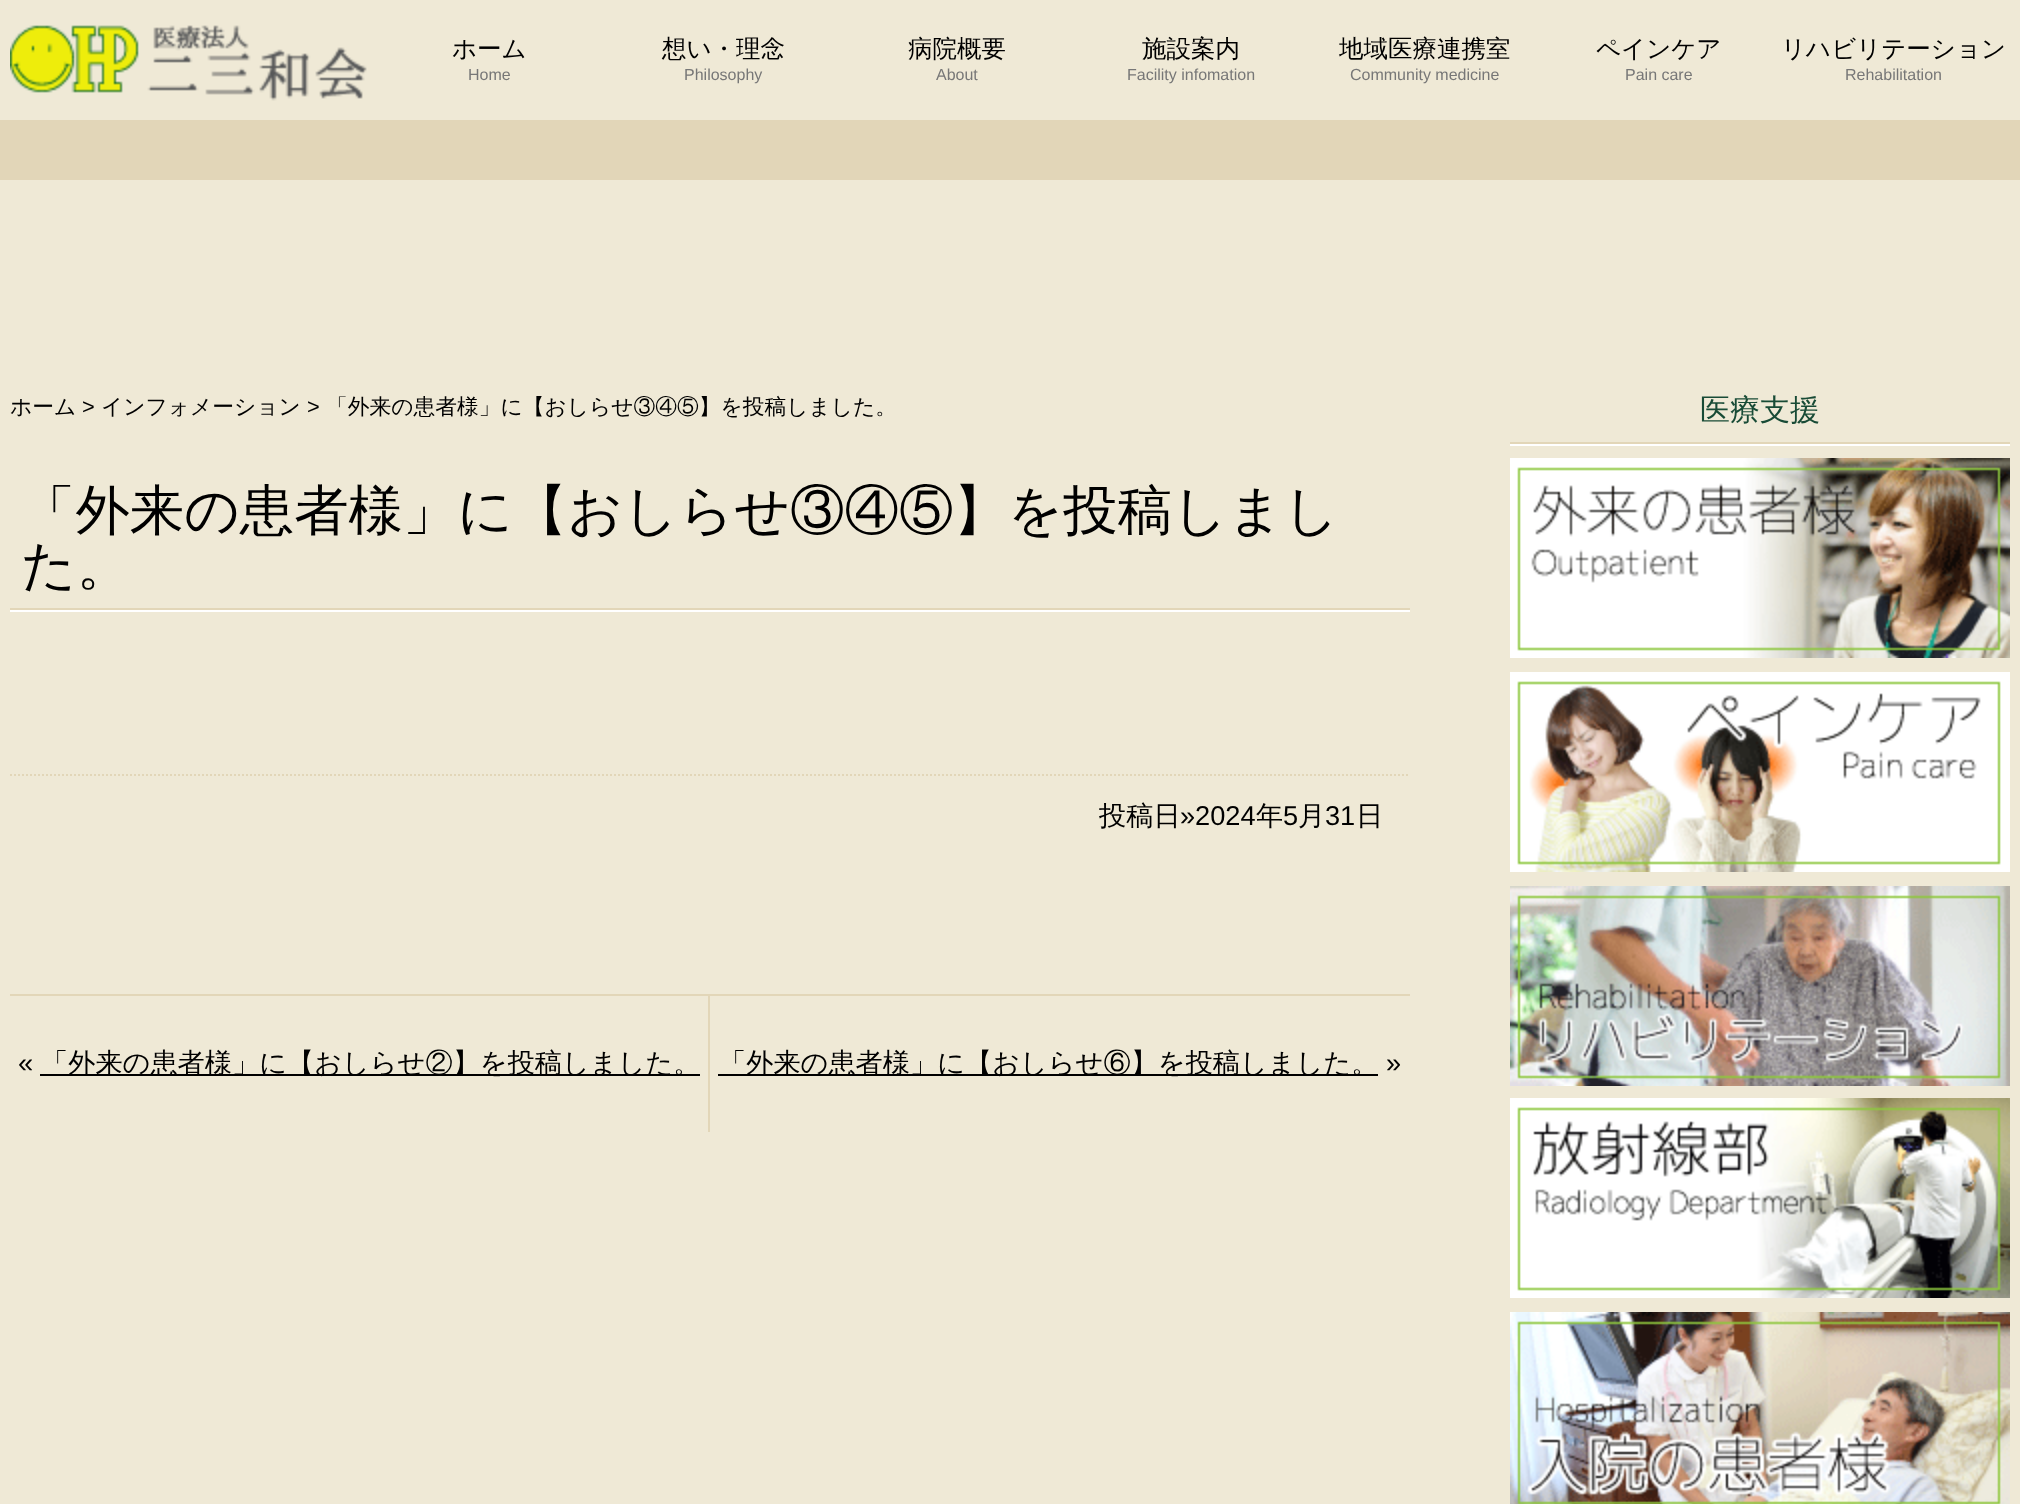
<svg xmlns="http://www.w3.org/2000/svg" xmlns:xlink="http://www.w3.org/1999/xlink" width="2020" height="1504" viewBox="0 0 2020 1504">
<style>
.cls-1{font:500 24.5px WenQuanYi Zen Hei;fill:#000000}
.cls-2{font:16px Liberation Sans;fill:#777777}
.cls-3{font:500 21.75px WenQuanYi Zen Hei;fill:#000000}
.cls-4{font:21.75px Liberation Sans;fill:#000000}
.cls-5{font:500 54.4px WenQuanYi Zen Hei;fill:#000000}
.cls-6{font:500 27.2px WenQuanYi Zen Hei;fill:#000000}
.cls-7{font:27.2px Liberation Sans;fill:#000000}
.cls-8{font:500 30px WenQuanYi Zen Hei;fill:#184b36}
</style>
<rect width="100%" height="100%" fill="#efe9d6"/>
<image xlink:href="image0.png" x="10" y="25" width="357" height="76"/>
<rect fill="#e2d6b8" x="0" y="120" width="2020" height="60"/>
<rect fill="#ffffff" x="10" y="610" width="1400" height="2"/>
<rect fill="#e2d6b8" x="10" y="608" width="1400" height="2"/>
<path fill="none" stroke="#e2d6b8" stroke-width="2" stroke-dasharray="2 2" d="M10 775H1410"/>
<rect fill="#e2d6b8" x="10" y="994" width="1400" height="2"/>
<rect fill="#e2d6b8" x="708" y="996" width="2" height="136"/>
<rect fill="#000000" x="40" y="1074" width="660" height="2"/>
<rect fill="#000000" x="718" y="1074" width="660" height="2"/>
<rect fill="#ffffff" x="1510" y="444" width="500" height="2"/>
<rect fill="#e2d6b8" x="1510" y="442" width="500" height="2"/>
<image xlink:href="image1.png" x="1510" y="458" width="500" height="200"/>
<image xlink:href="image2.png" x="1510" y="672" width="500" height="200"/>
<image xlink:href="image3.png" x="1510" y="886" width="500" height="200"/>
<image xlink:href="image4.png" x="1510" y="1098" width="500" height="200"/>
<image xlink:href="image5.png" x="1510" y="1312" width="500" height="192"/>
<text class="cls-1" x="452" y="57">ホーム</text>
<text class="cls-2" x="468" y="80">Home</text>
<text class="cls-1" x="662" y="57">想い・理念</text>
<text class="cls-2" x="684" y="80">Philosophy</text>
<text class="cls-1" x="908" y="57">病院概要</text>
<text class="cls-2" x="936" y="80">About</text>
<text class="cls-1" x="1142" y="57">施設案内</text>
<text class="cls-2" x="1127" y="80">Facility infomation</text>
<text class="cls-1" x="1339" y="57">地域医療連携室</text>
<text class="cls-2" x="1350" y="80">Community medicine</text>
<text class="cls-1" x="1596" y="57">ペインケア</text>
<text class="cls-2" x="1625" y="80">Pain care</text>
<text class="cls-1" x="1781" y="57">リハビリテーション</text>
<text class="cls-2" x="1845" y="80">Rehabilitation</text>
<text class="cls-3" x="10" y="414">ホーム</text>
<text class="cls-4" x="82" y="414">&gt;</text>
<text class="cls-3" x="101" y="414">インフォメーション</text>
<text class="cls-4" x="307" y="414">&gt;</text>
<text class="cls-3" x="326" y="414">「外来の患者様」に【おしらせ③④⑤】を投稿しました。</text>
<text class="cls-5"><tspan x="21" y="529">「外来の患者様」に【おしらせ③④⑤】を投稿しまし</tspan><tspan x="21" y="584">た。</tspan></text>
<text class="cls-6" x="1099" y="825">投稿日</text>
<text class="cls-7" x="1180" y="825">»2024</text>
<text class="cls-6" x="1256" y="825">年</text>
<text class="cls-7" x="1283" y="825">5</text>
<text class="cls-6" x="1298" y="825">月</text>
<text class="cls-7" x="1325" y="825">31</text>
<text class="cls-6" x="1356" y="825">日</text>
<text class="cls-7" x="18" y="1072">«</text>
<text class="cls-6" x="41" y="1072">「外来の患者様」に【おしらせ②】を投稿しました。</text>
<text class="cls-6" x="719" y="1072">「外来の患者様」に【おしらせ⑥】を投稿しました。</text>
<text class="cls-7" x="1386" y="1072">»</text>
<text class="cls-8" x="1700" y="420">医療支援</text>
</svg>
